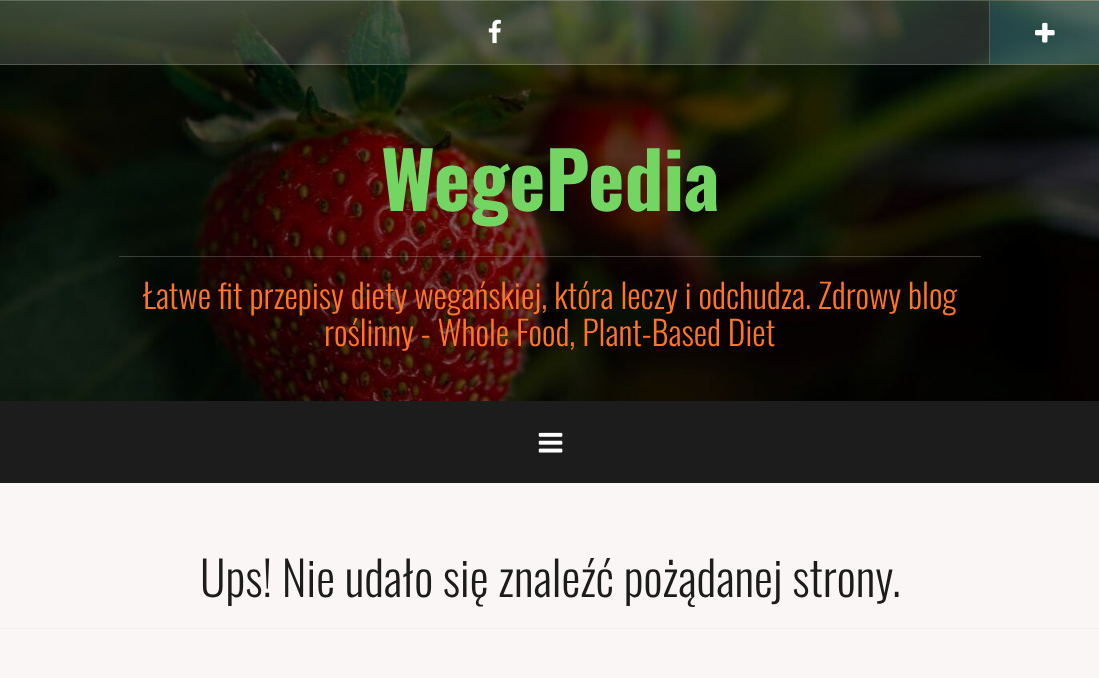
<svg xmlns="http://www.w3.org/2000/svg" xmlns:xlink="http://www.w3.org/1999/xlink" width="1099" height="678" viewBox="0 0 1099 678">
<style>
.cls-1{font:bold 77.5px Oswald;fill:#73d662}
.cls-2{font:300 33.75px Oswald;fill:#ff7526}
.cls-3{font:300 47.5px Oswald;fill:#1c1c1c}
</style>
<rect width="100%" height="100%" fill="#f9f6f5"/>
<image xlink:href="image0.png" x="0" y="0" width="1099" height="401"/>
<rect fill="#ffffff" fill-opacity="0.15" x="0" y="0" width="1099" height="65"/>
<rect fill="#ffffff" fill-opacity="0.2" x="0" y="0" width="1099" height="1"/>
<rect fill="#ffffff" fill-opacity="0.2" x="0" y="64" width="1099" height="1"/>
<rect fill="#ffffff" fill-opacity="0.2" x="989" y="1" width="1" height="63"/>
<image xlink:href="image1.png" x="488" y="19" width="13" height="25"/>
<rect fill="#256777" fill-opacity="0.4" x="990" y="1" width="109" height="63"/>
<image xlink:href="image2.png" x="1035" y="22" width="20" height="21"/>
<rect fill="#ffffff" fill-opacity="0.2" x="119" y="256" width="862" height="1"/>
<rect fill="#1c1c1c" x="0" y="401" width="1099" height="82"/>
<image xlink:href="image3.png" x="538" y="432" width="25" height="21"/>
<rect fill="#eeeeee" x="0" y="628" width="1099" height="1"/>
<text class="cls-1" x="381" y="211">WegePedia</text>
<text class="cls-2" x="143" y="309">Łatwe fit przepisy diety wegańskiej, która leczy i odchudza. Zdrowy blog</text>
<text class="cls-2" x="324" y="346">roślinny - Whole Food, Plant-Based Diet</text>
<text class="cls-3" x="200" y="597">Ups! Nie udało się znaleźć pożądanej strony.</text>
</svg>
